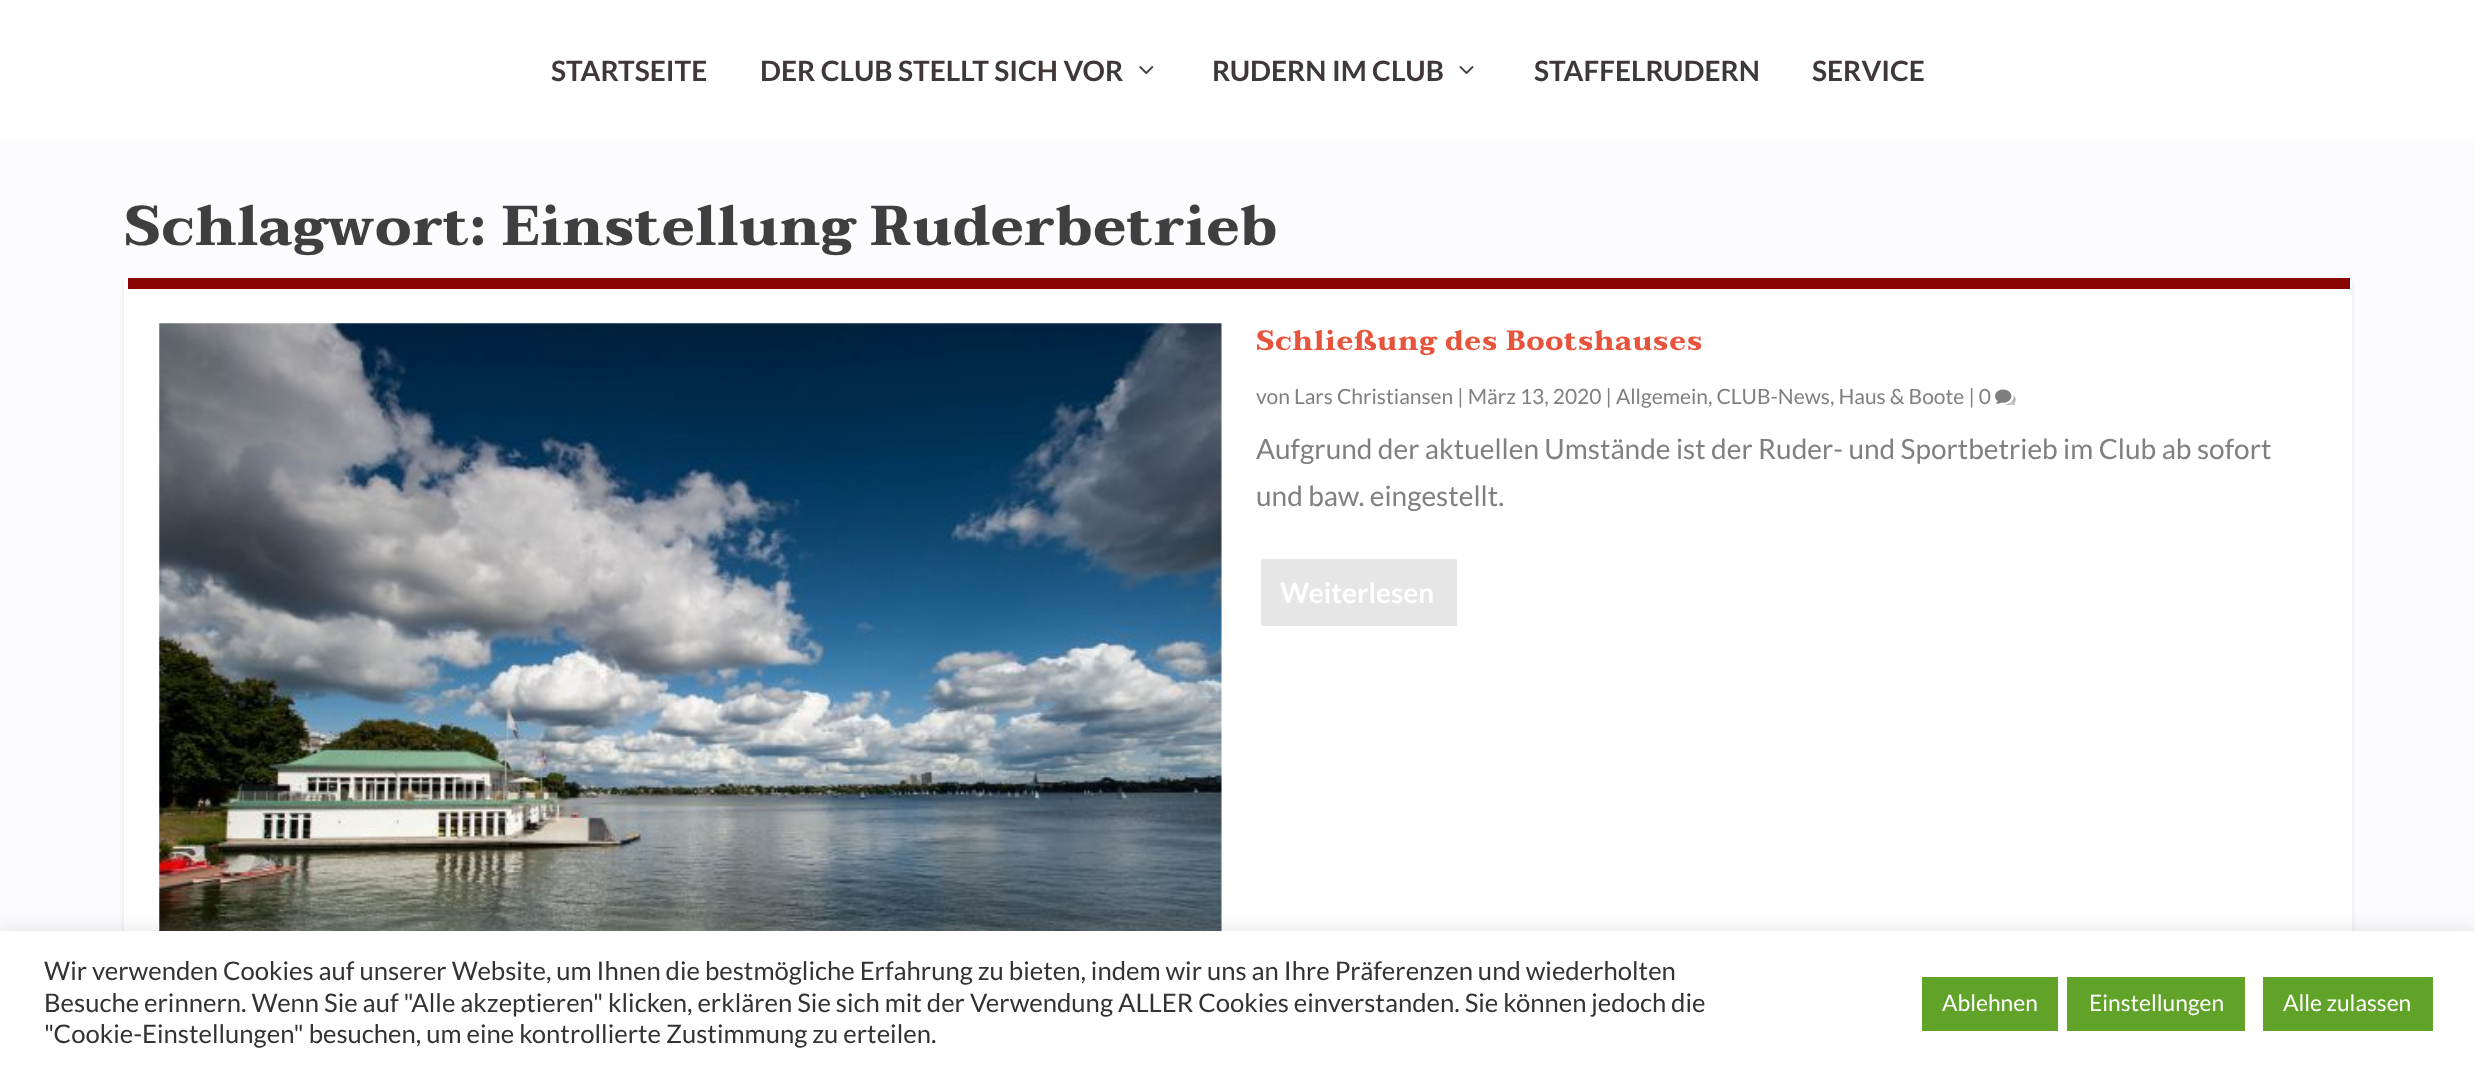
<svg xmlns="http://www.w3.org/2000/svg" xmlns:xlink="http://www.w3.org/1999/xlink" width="2475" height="1074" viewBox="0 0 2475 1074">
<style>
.cls-1{font:bold 28px Lato;fill:#403838}
.cls-2{font:bold 56px Taviraj;letter-spacing:0.9px;fill:#3f3f40}
.cls-3{font:bold 28px Taviraj;letter-spacing:0.9px;fill:#e8533b}
.cls-4{font:21px Lato;fill:#808080}
.cls-5{font:28px Lato;fill:#808080}
.cls-6{font:bold 28px Lato;fill:#ffffff}
.cls-7{font:25.67px Lato;fill:#333333}
.cls-8{font:22.75px Lato;fill:#ffffff}
</style>
<rect width="100%" height="100%" fill="#fcfcff"/>
<rect fill="#ffffff" x="0" y="0" width="2475" height="140"/>
<image xlink:href="image0.png" x="1139" y="66" width="15" height="8"/>
<image xlink:href="image1.png" x="1459" y="66" width="15" height="8"/>
<rect fill="#000000" fill-opacity="0.1" filter="blur(2.5px)" x="124" y="280" width="2228" height="719" rx="5"/>
<rect fill="#ffffff" x="124" y="278" width="2228" height="720" rx="5"/>
<rect fill="#890505" x="128" y="278" width="2222" height="11"/>
<image xlink:href="image2.png" x="159" y="323" width="1063" height="608"/>
<image xlink:href="image3.png" x="1995" y="389" width="21" height="17"/>
<rect fill="#e6e6e6" stroke="#ffffff" stroke-width="4" x="1259" y="557" width="200" height="71" rx="3"/>
<rect fill="#acabab" fill-opacity="0.3" filter="blur(9px)" x="0" y="929" width="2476" height="144"/>
<rect fill="#ffffff" x="0" y="931" width="2475" height="143"/>
<rect fill="#61a229" x="1922" y="977" width="136" height="54"/>
<rect fill="#61a229" x="2067" y="977" width="178" height="54"/>
<rect fill="#61a229" x="2263" y="977" width="170" height="54"/>
<text class="cls-1" x="551" y="81">STARTSEITE</text>
<text class="cls-1" x="760" y="81">DER CLUB STELLT SICH VOR</text>
<text class="cls-1" x="1212" y="81">RUDERN IM CLUB</text>
<text class="cls-1" x="1534" y="81">STAFFELRUDERN</text>
<text class="cls-1" x="1812" y="81">SERVICE</text>
<text class="cls-2" x="124" y="245">Schlagwort: Einstellung Ruderbetrieb</text>
<text class="cls-3" x="1256" y="350">Schließung des Bootshauses</text>
<text class="cls-4" x="1256" y="404">von Lars Christiansen | März 13, 2020 | Allgemein, CLUB-News, Haus &amp; Boote | 0</text>
<text class="cls-5"><tspan x="1256" y="459">Aufgrund der aktuellen Umstände ist der Ruder- und Sportbetrieb im Club ab sofort</tspan><tspan x="1256" y="506">und baw. eingestellt.</tspan></text>
<text class="cls-6" x="1280" y="603">Weiterlesen</text>
<text class="cls-7"><tspan x="44" y="980">Wir verwenden Cookies auf unserer Website, um Ihnen die bestmögliche Erfahrung zu bieten, indem wir uns an Ihre Präferenzen und wiederholten</tspan><tspan x="44" y="1012">Besuche erinnern. Wenn Sie auf "Alle akzeptieren" klicken, erklären Sie sich mit der Verwendung ALLER Cookies einverstanden. Sie können jedoch die</tspan><tspan x="44" y="1043">"Cookie-Einstellungen" besuchen, um eine kontrollierte Zustimmung zu erteilen.</tspan></text>
<text class="cls-8" x="1942" y="1011">Ablehnen</text>
<text class="cls-8" x="2089" y="1011">Einstellungen</text>
<text class="cls-8" x="2283" y="1011">Alle zulassen</text>
</svg>
